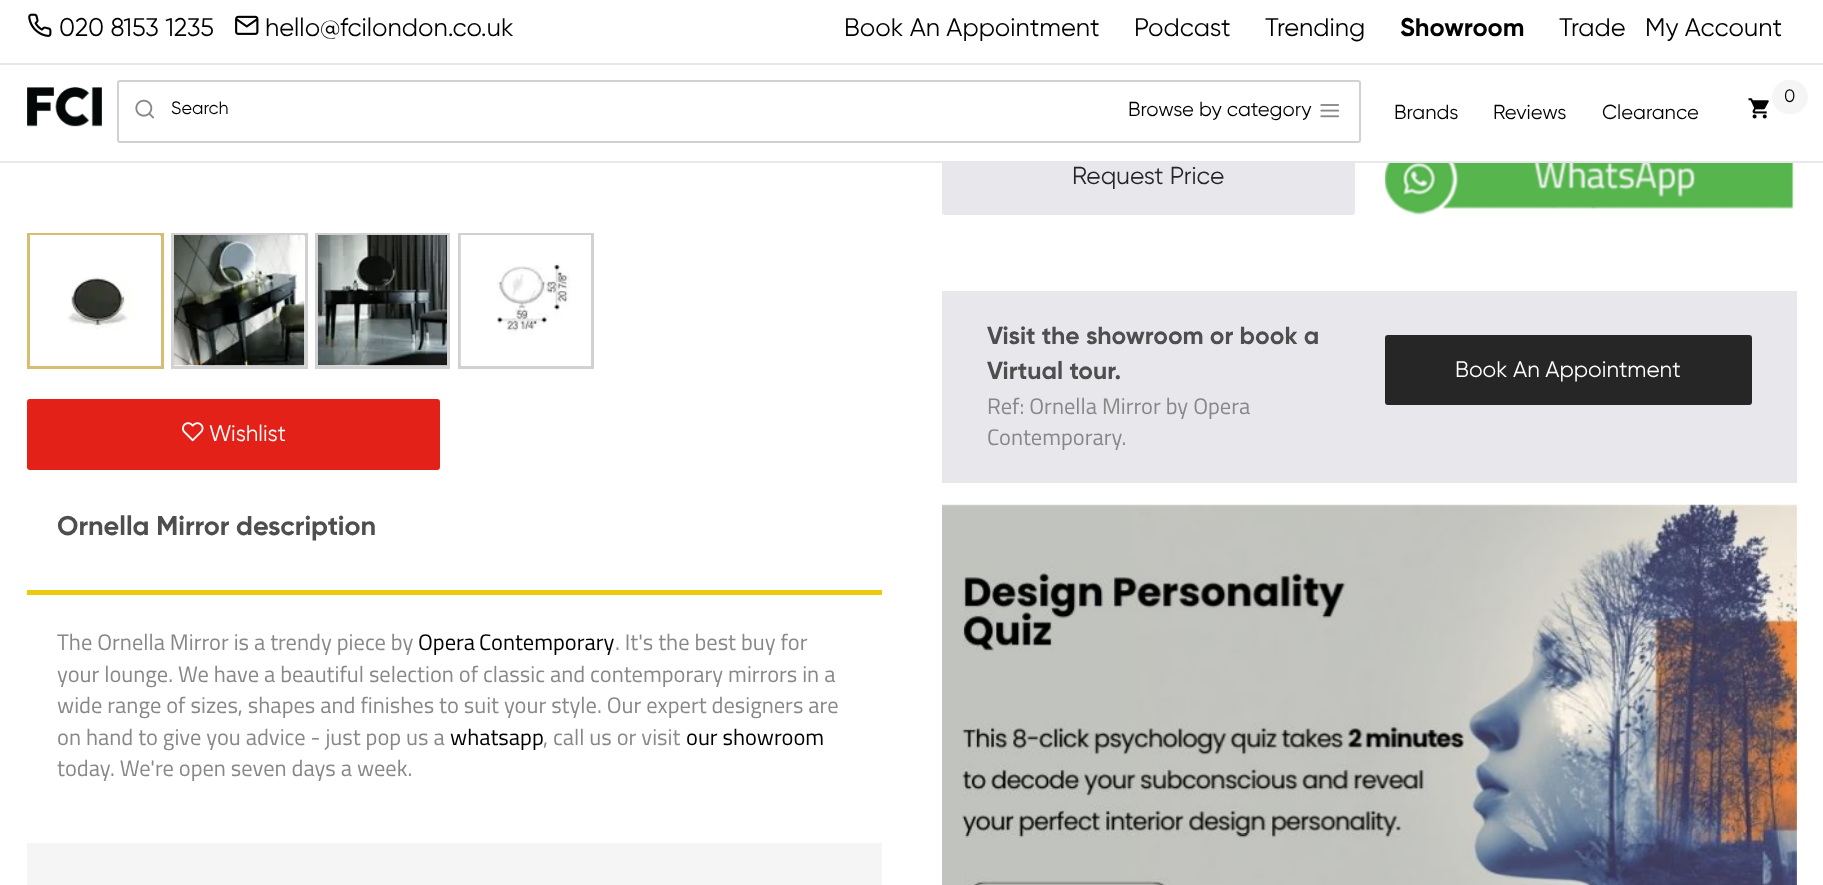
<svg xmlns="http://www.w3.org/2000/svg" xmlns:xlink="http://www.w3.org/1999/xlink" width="1823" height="885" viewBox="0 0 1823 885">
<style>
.cls-1{font:25.5px Gilroy;fill:#000000}
.cls-2{font:25.5px 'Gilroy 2';fill:#000000}
.cls-3{font:18px Gilroy;fill:#000000}
.cls-4{font:20.25px Gilroy;fill:#000000}
.cls-5{font:24.5px Gilroy;fill:#262626}
.cls-6{font:24.75px 'Gilroy 2';fill:#4e4e4e}
.cls-7{font:22.5px Titillium Web;fill:#888888}
.cls-8{font:22.5px Gilroy;fill:#ffffff}
.cls-9{font:27px 'Gilroy 2';fill:#4e4e4e}
.cls-10{font:22.5px Titillium Web;fill:#000000}
</style>
<rect width="100%" height="100%" fill="#ffffff"/>
<rect fill="#e8e7ec" stroke="#e8e7ec" stroke-width="2" x="943" y="144" width="411" height="70" rx="2"/>
<rect fill="#ffffff" x="942" y="143" width="413" height="18"/>
<rect fill="#e8e7ec" x="0" y="161" width="1823" height="2"/>
<rect fill="#e8e7ec" x="0" y="63" width="1823" height="2"/>
<image xlink:href="image0.png" x="28" y="13" width="24" height="24"/>
<image xlink:href="image1.png" x="235" y="15" width="24" height="20"/>
<image xlink:href="image2.png" x="27" y="87" width="75" height="40"/>
<rect fill="#f5f5f5" x="1772" y="80" width="36" height="34" rx="17"/>
<image xlink:href="image3.png" x="1748" y="98" width="21" height="21"/>
<rect fill="none" stroke="#d1d1d1" stroke-width="2" x="118" y="81" width="1242" height="61" rx="2"/>
<image xlink:href="image4.png" x="135" y="99" width="20" height="20"/>
<image xlink:href="image5.png" x="1320" y="104" width="20" height="14"/>
<image xlink:href="image6.png" x="1385" y="163" width="409" height="52"/>
<rect fill="#e8e7ec" x="942" y="291" width="855" height="192"/>
<rect fill="#262626" stroke="#262626" stroke-width="2" x="1386" y="336" width="365" height="68" rx="2"/>
<image xlink:href="image7.png" x="942" y="504" width="855" height="381"/>
<rect fill="none" stroke="#d7bd72" stroke-width="3" x="28.5" y="234.5" width="134" height="133"/>
<image xlink:href="image8.png" x="30" y="235" width="131" height="95"/>
<rect fill="none" stroke="#d1d1d1" stroke-width="3" x="172.5" y="234.5" width="134" height="133"/>
<image xlink:href="image9.png" x="174" y="235" width="131" height="131"/>
<rect fill="none" stroke="#d1d1d1" stroke-width="3" x="316.5" y="234.5" width="132" height="133"/>
<image xlink:href="image10.png" x="318" y="235" width="129" height="131"/>
<rect fill="none" stroke="#d1d1d1" stroke-width="3" x="459.5" y="234.5" width="133" height="133"/>
<image xlink:href="image11.png" x="460" y="235" width="131" height="130"/>
<rect fill="#e42118" stroke="#e42118" stroke-width="2" x="28" y="400" width="411" height="69" rx="2"/>
<image xlink:href="image12.png" x="182" y="422" width="22" height="20"/>
<rect fill="#ebca0d" x="27" y="590" width="855" height="5"/>
<rect fill="#f5f5f5" x="27" y="843" width="855" height="42"/>
<text class="cls-1" x="59" y="36">020 8153 1235</text>
<text class="cls-1" x="265" y="36">hello@fcilondon.co.uk</text>
<text class="cls-1" x="844" y="36">Book An Appointment</text>
<text class="cls-1" x="1134" y="36">Podcast</text>
<text class="cls-1" x="1265" y="36">Trending</text>
<text class="cls-2" x="1400" y="36">Showroom</text>
<text class="cls-1" x="1559" y="36">Trade</text>
<text class="cls-1" x="1645" y="36">My Account</text>
<text class="cls-3" x="1784" y="102">0</text>
<text class="cls-3" x="171" y="114">Search</text>
<text class="cls-4" x="1128" y="116">Browse by category</text>
<text class="cls-4" x="1394" y="119">Brands</text>
<text class="cls-4" x="1493" y="119">Reviews</text>
<text class="cls-4" x="1602" y="119">Clearance</text>
<text class="cls-5" x="1072" y="184">Request Price</text>
<text class="cls-6"><tspan x="987" y="344">Visit the showroom or book a</tspan><tspan x="987" y="379">Virtual tour.</tspan></text>
<text class="cls-7"><tspan x="987" y="414">Ref: Ornella Mirror by Opera</tspan><tspan x="987" y="445">Contemporary.</tspan></text>
<text class="cls-8" x="1455" y="377">Book An Appointment</text>
<text class="cls-8" x="209" y="441">Wishlist</text>
<text class="cls-9" x="57" y="535">Ornella Mirror description</text>
<text class="cls-7" x="57" y="650">The Ornella Mirror is a trendy piece by</text>
<text class="cls-10" x="418" y="650" word-spacing="-1">Opera Contemporary</text>
<text class="cls-7" x="615" y="650">. It's the best buy for</text>
<text class="cls-7"><tspan x="57" y="682">your lounge. We have a beautiful selection of classic and contemporary mirrors in a</tspan><tspan x="57" y="713">wide range of sizes, shapes and finishes to suit your style. Our expert designers are</tspan><tspan x="57" y="745">on hand to give you advice - just pop us a</tspan></text>
<text class="cls-10" x="450" y="745">whatsapp</text>
<text class="cls-7" x="543" y="745">, call us or visit</text>
<text class="cls-10" x="686" y="745">our showroom</text>
<text class="cls-7" x="57" y="776">today. We're open seven days a week.</text>
</svg>
